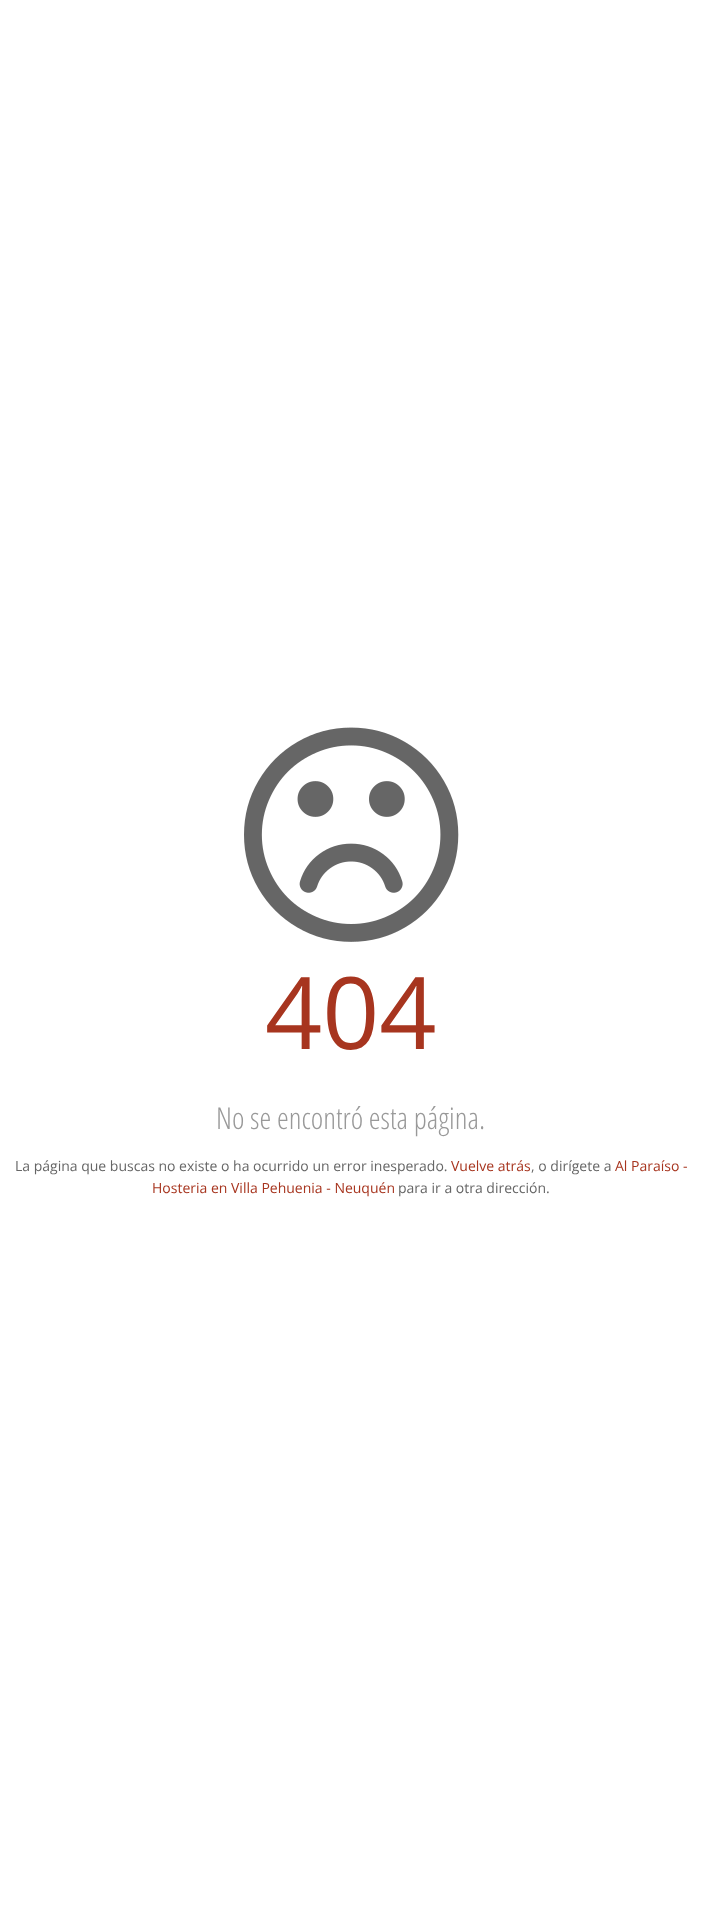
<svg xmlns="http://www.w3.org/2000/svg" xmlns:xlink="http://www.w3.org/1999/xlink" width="702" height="1929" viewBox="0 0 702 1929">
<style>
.cls-1{font:100px Open Sans;fill:#a7351f}
.cls-2{font:300 30px Open Sans Condensed;fill:#999999}
.cls-3{font:14px Open Sans;fill:#666666}
.cls-4{font:14px Open Sans;fill:#a7351f}
</style>
<rect width="100%" height="100%" fill="#ffffff"/>
<image xlink:href="image0.png" x="244" y="727" width="215" height="215"/>
<text class="cls-1" x="265" y="1049">404</text>
<text class="cls-2" x="216" y="1129">No se encontró esta página.</text>
<text class="cls-3" x="15" y="1171">La página que buscas no existe o ha ocurrido un error inesperado.</text>
<text class="cls-4" x="451" y="1171">Vuelve atrás</text>
<text class="cls-3" x="531" y="1171">, o dirígete a</text>
<text class="cls-4" x="615" y="1171">Al Paraíso -</text>
<text class="cls-4" x="152" y="1193">Hosteria en Villa Pehuenia - Neuquén</text>
<text class="cls-3" x="398" y="1193">para ir a otra dirección.</text>
</svg>
